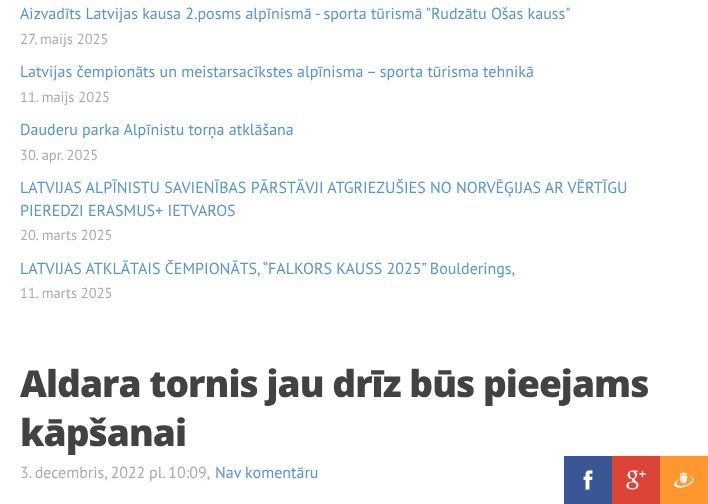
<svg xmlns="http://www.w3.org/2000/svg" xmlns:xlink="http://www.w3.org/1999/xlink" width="708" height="504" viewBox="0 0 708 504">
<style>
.cls-1{font:16px PT Sans;fill:#5694d2}
.cls-2{font:14.5px PT Sans;fill:#ababab}
.cls-3{font:800 37.1px Open Sans;letter-spacing:-0.95px;fill:#424242}
.cls-4{font:16px PT Sans;fill:#ababab}
</style>
<rect width="100%" height="100%" fill="#ffffff"/>
<rect fill="#3a5795" x="564" y="456" width="48" height="48"/>
<image xlink:href="image0.png" x="583" y="470" width="10" height="20"/>
<rect fill="#db4437" x="612" y="456" width="48" height="48"/>
<image xlink:href="image1.png" x="626" y="470" width="20" height="20"/>
<rect fill="#fe972d" x="660" y="456" width="48" height="48"/>
<image xlink:href="image2.png" x="674" y="472" width="20" height="16"/>
<text class="cls-1" x="20" y="19">Aizvadīts Latvijas kausa 2.posms alpīnismā - sporta tūrismā "Rudzātu Ošas kauss"</text>
<text class="cls-2" x="20" y="44">27. maijs 2025</text>
<text class="cls-1" x="20" y="77">Latvijas čempionāts un meistarsacīkstes alpīnisma – sporta tūrisma tehnikā</text>
<text class="cls-2" x="20" y="102">11. maijs 2025</text>
<text class="cls-1" x="20" y="135">Dauderu parka Alpīnistu torņa atklāšana</text>
<text class="cls-2" x="20" y="160">30. apr. 2025</text>
<text class="cls-1"><tspan x="20" y="193">LATVIJAS ALPĪNISTU SAVIENĪBAS PĀRSTĀVJI ATGRIEZUŠIES NO NORVĒĢIJAS AR VĒRTĪGU</tspan><tspan x="20" y="216">PIEREDZI ERASMUS+ IETVAROS</tspan></text>
<text class="cls-2" x="20" y="240">20. marts 2025</text>
<text class="cls-1" x="20" y="274">LATVIJAS ATKLĀTAIS ČEMPIONĀTS, “FALKORS KAUSS 2025” Boulderings,</text>
<text class="cls-2" x="20" y="298">11. marts 2025</text>
<text class="cls-3"><tspan x="20" y="397">Aldara tornis jau drīz būs pieejams</tspan><tspan x="20" y="446">kāpšanai</tspan></text>
<text class="cls-4" x="20" y="478" word-spacing="-0.5">3. decembris, 2022 pl. 10:09,</text>
<text class="cls-1" x="215" y="478">Nav komentāru</text>
</svg>
